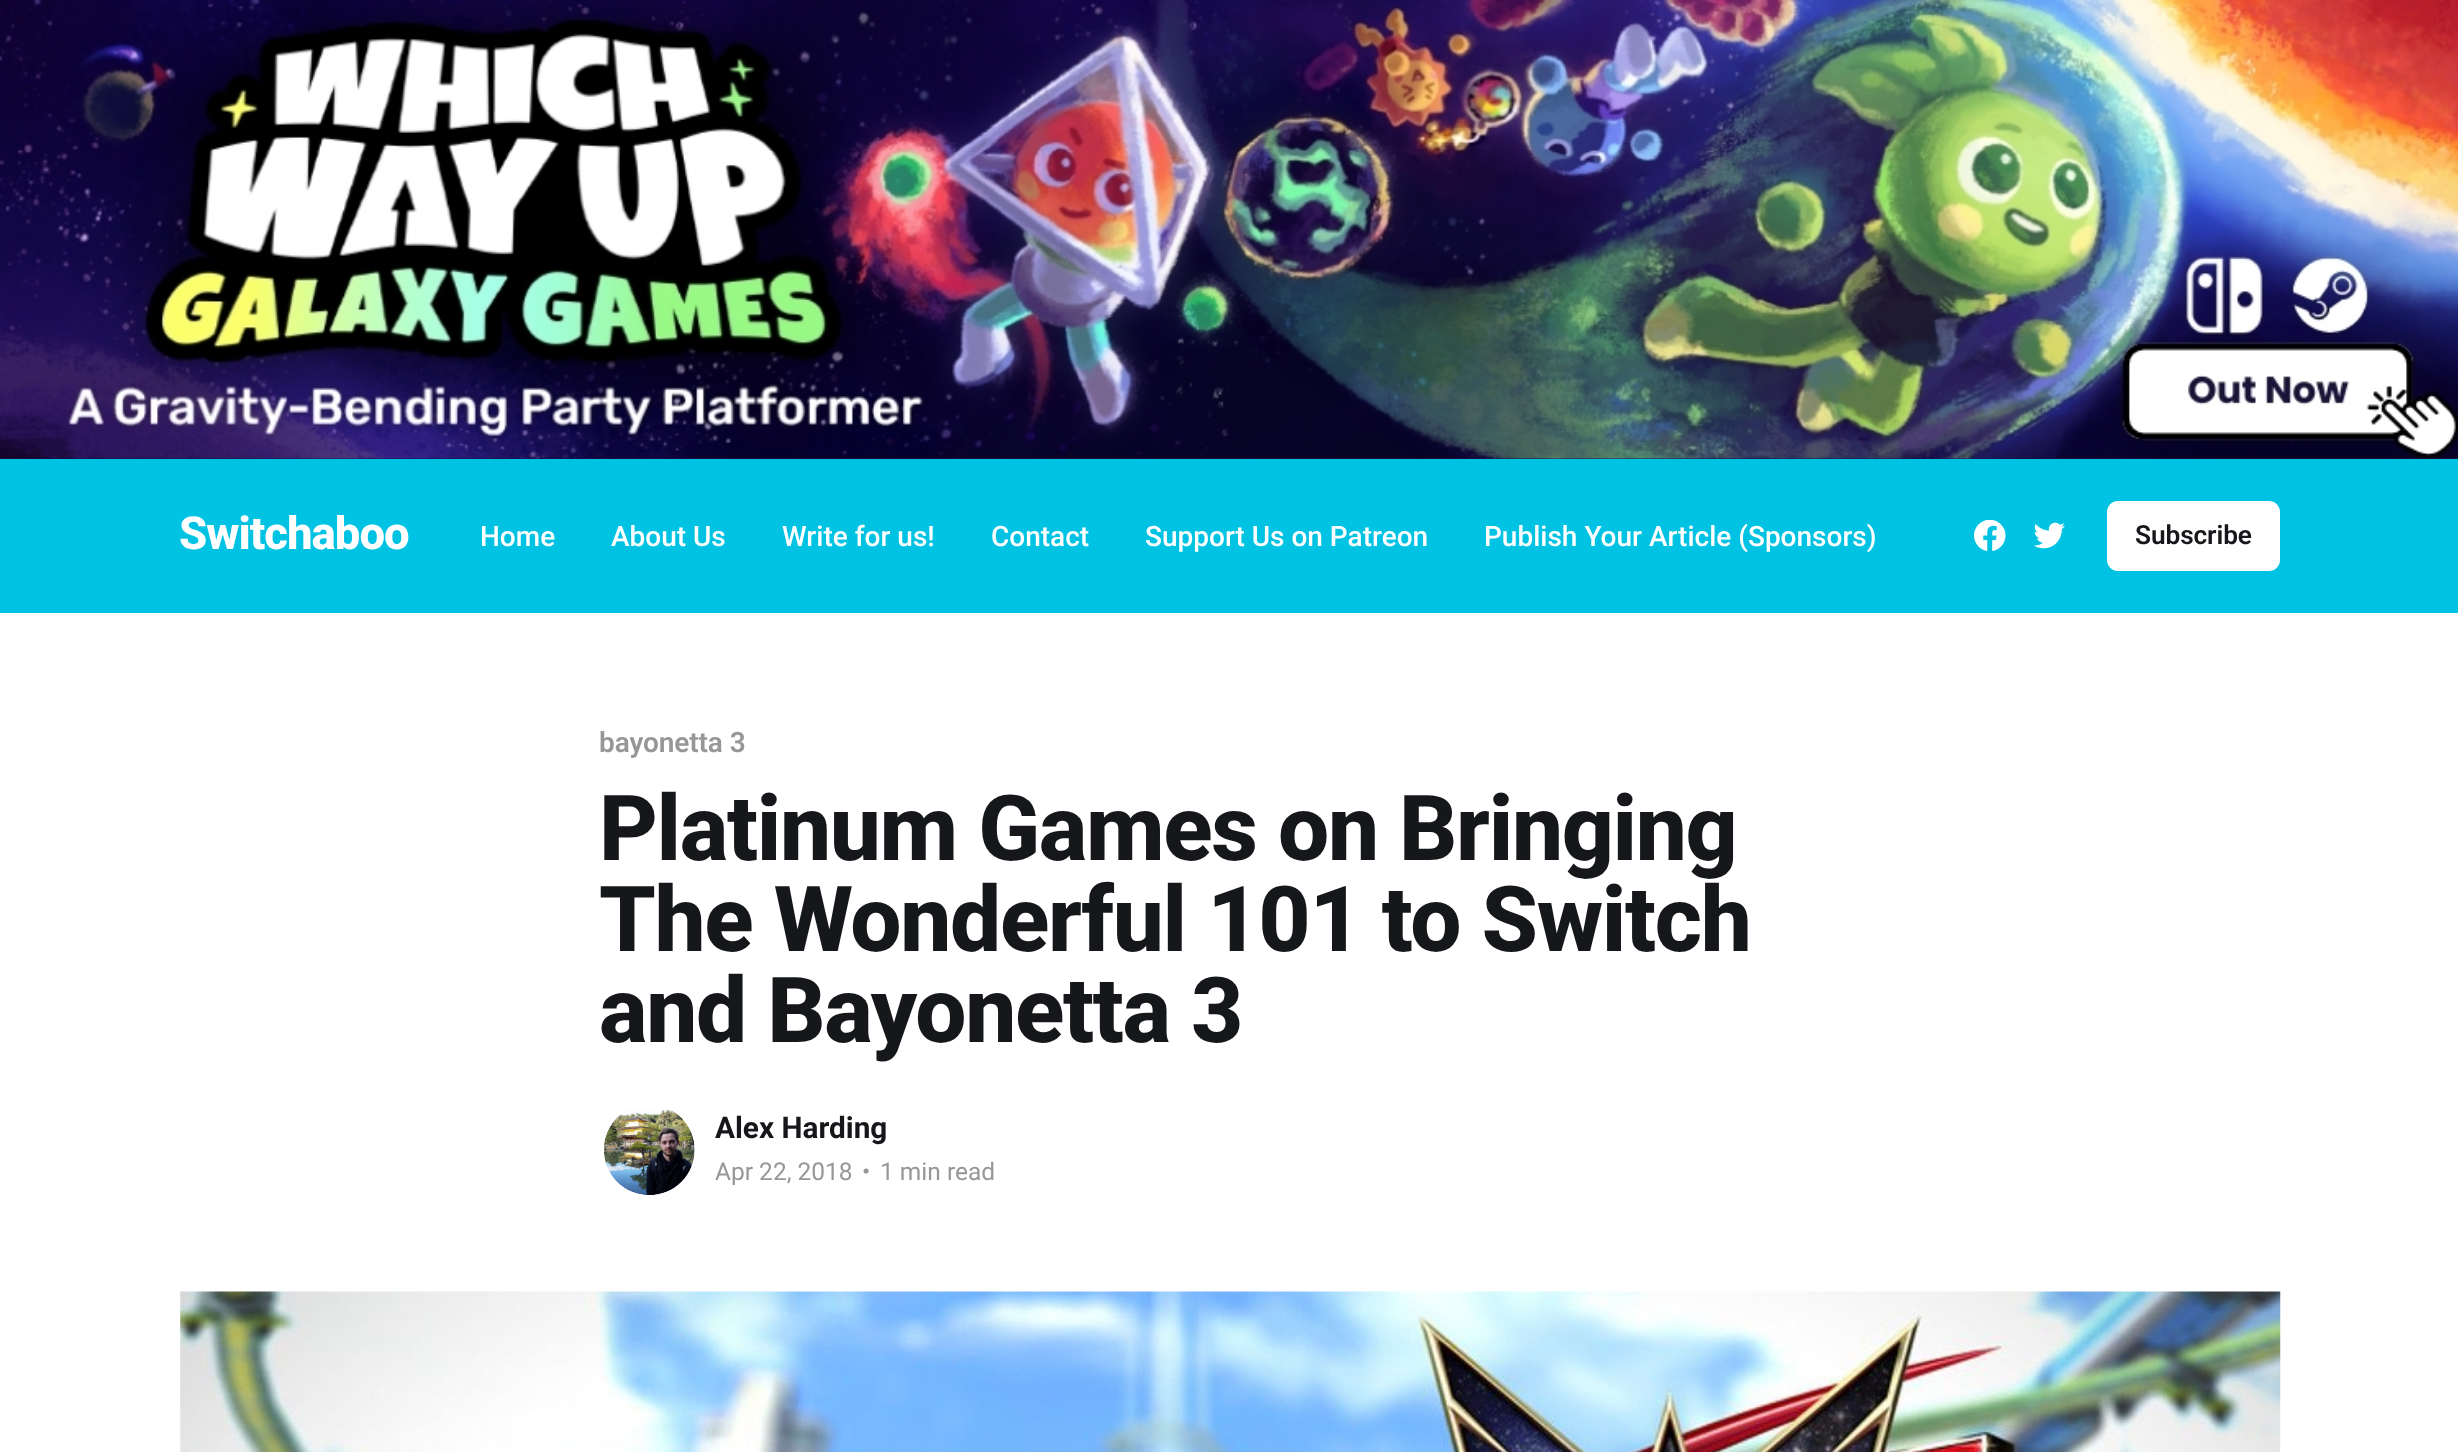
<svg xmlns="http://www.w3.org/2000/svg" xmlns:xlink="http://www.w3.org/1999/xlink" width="2458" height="1452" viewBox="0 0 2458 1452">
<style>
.cls-1{font:800 45.5px Roboto;letter-spacing:-1px;fill:#ffffff}
.cls-2{font:500 28px Roboto;fill:#ffffff}
.cls-3{font:600 26.25px Roboto;letter-spacing:-0.1px;fill:#15171a}
.cls-4{font:600 28px Roboto;letter-spacing:-0.1px;fill:#979797}
.cls-5{font:800 91px Roboto;letter-spacing:-1.35px;fill:#15171a}
.cls-6{font:bold 29.75px Roboto;fill:#15171a}
.cls-7{font:24.5px Roboto;fill:#979797}
</style>
<rect width="100%" height="100%" fill="#ffffff"/>
<rect fill="#11193e" x="0" y="458" width="2458" height="1"/>
<image xlink:href="image0.png" x="0" y="0" width="2458" height="459"/>
<rect fill="#00c3e3" x="0" y="459" width="2458" height="154"/>
<image xlink:href="image1.png" x="1974" y="520" width="32" height="31"/>
<image xlink:href="image2.png" x="2034" y="522" width="31" height="27"/>
<rect fill="#ffffff" x="2107" y="501" width="173" height="70" rx="11"/>
<image xlink:href="image3.png" x="604" y="1109" width="91" height="86"/>
<image xlink:href="image4.png" x="180" y="1291" width="2101" height="161"/>
<text class="cls-1" x="179" y="549">Switchaboo</text>
<text class="cls-2" x="480" y="546">Home</text>
<text class="cls-2" x="611" y="546">About Us</text>
<text class="cls-2" x="782" y="546">Write for us!</text>
<text class="cls-2" x="991" y="546">Contact</text>
<text class="cls-2" x="1145" y="546">Support Us on Patreon</text>
<text class="cls-2" x="1484" y="546">Publish Your Article (Sponsors)</text>
<text class="cls-3" x="2135" y="544">Subscribe</text>
<text class="cls-4" x="599" y="752">bayonetta 3</text>
<text class="cls-5"><tspan x="599" y="860">Platinum Games on Bringing</tspan><tspan x="599" y="951">The Wonderful 101 to Switch</tspan><tspan x="599" y="1042">and Bayonetta 3</tspan></text>
<text class="cls-6" x="715" y="1138">Alex Harding</text>
<text class="cls-7" x="715" y="1180">Apr 22, 2018</text>
<text class="cls-7" x="862" y="1180">•</text>
<text class="cls-7" x="880" y="1180">1 min read</text>
</svg>
